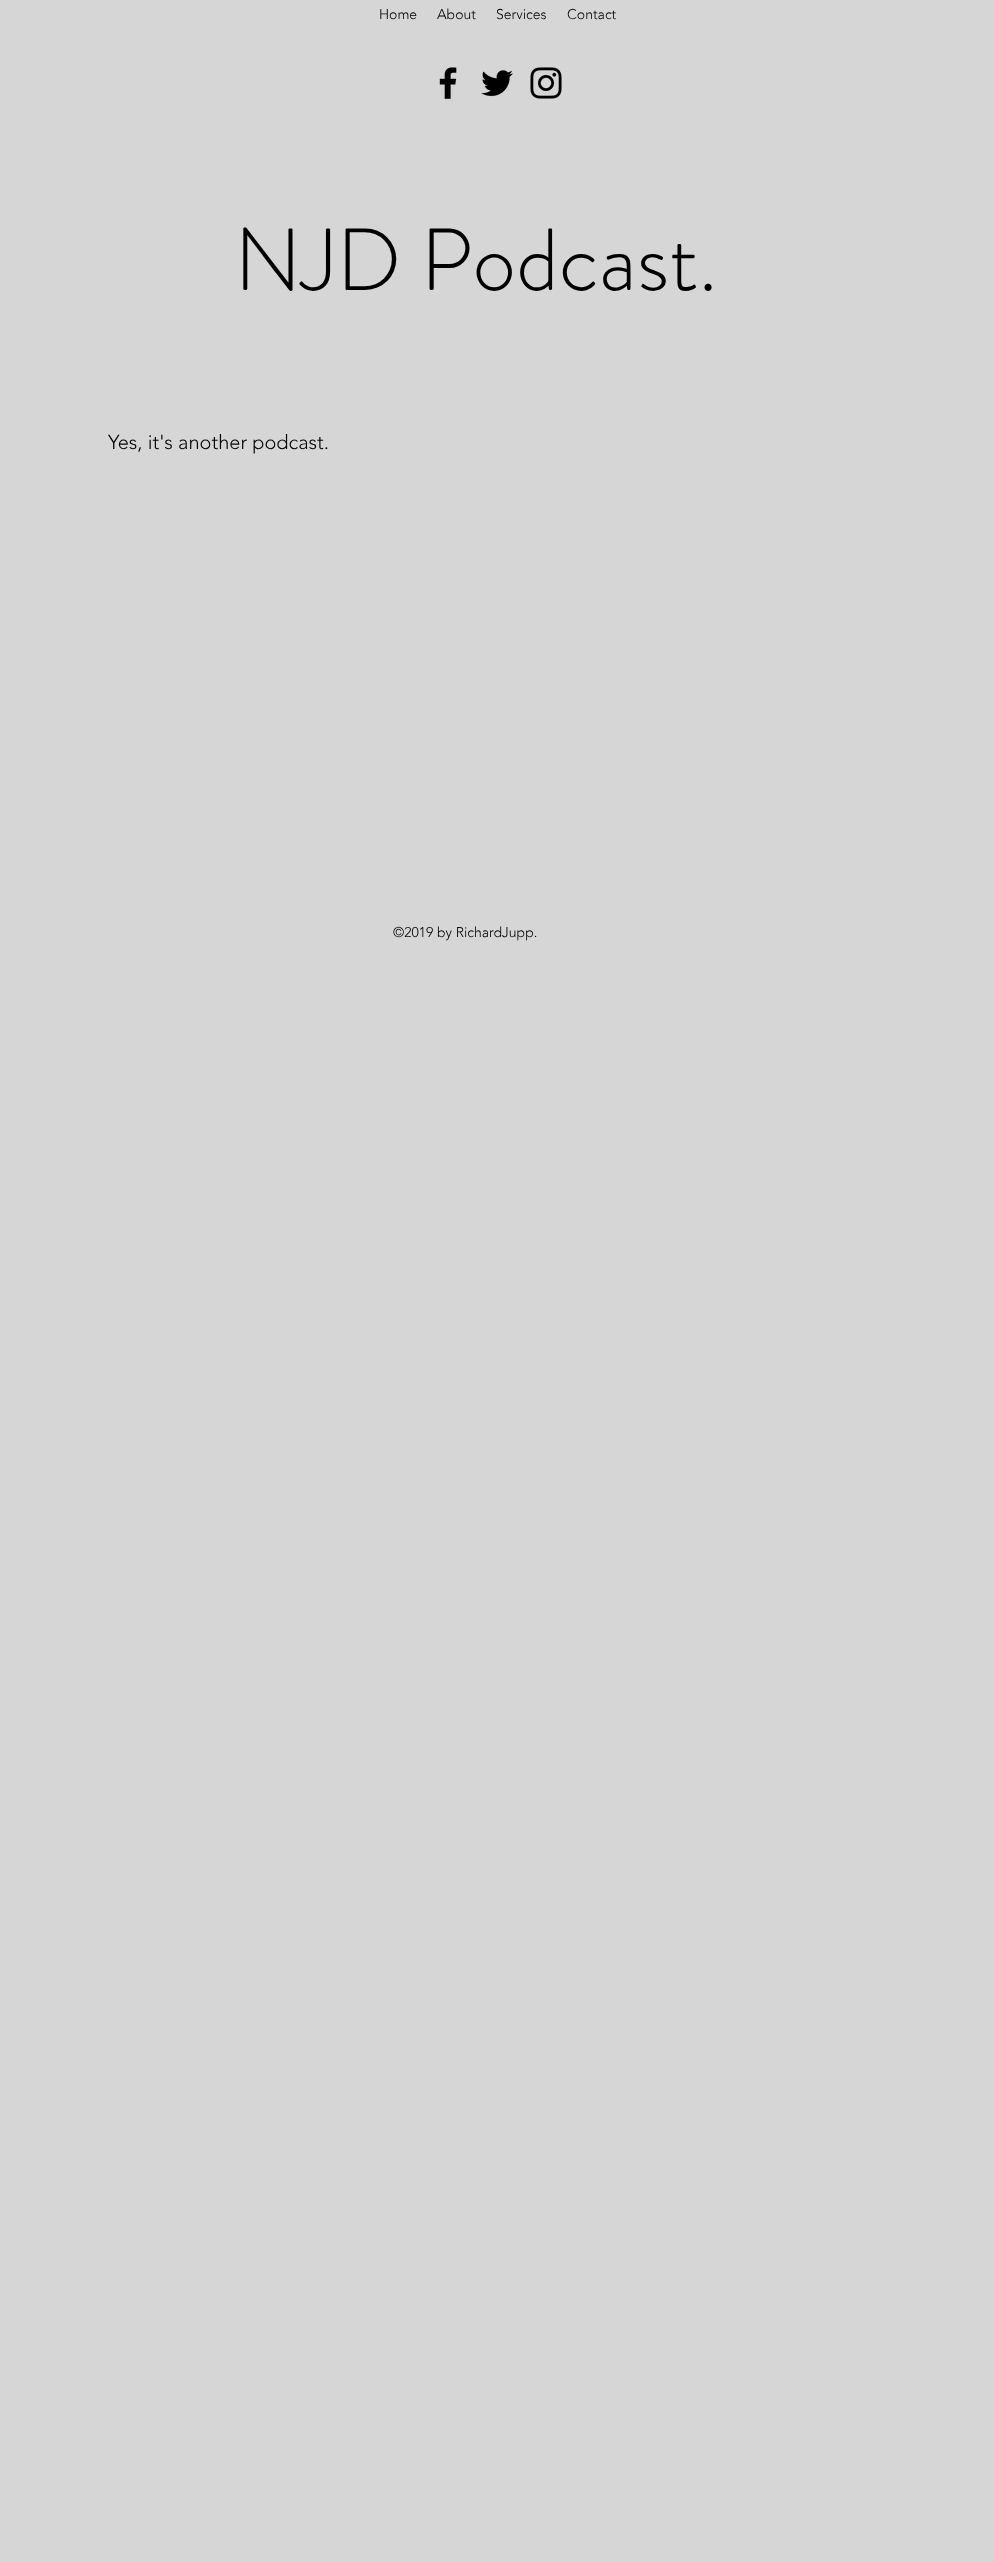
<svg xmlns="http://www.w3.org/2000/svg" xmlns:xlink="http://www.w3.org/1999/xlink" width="994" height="2562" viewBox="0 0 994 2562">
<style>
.cls-1{font:300 14px 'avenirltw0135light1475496';fill:#000000}
.cls-2{font:300 88px 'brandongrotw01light';fill:#000000}
.cls-3{font:300 20px 'avenirltw0135light1475496';fill:#000000}
</style>
<rect width="100%" height="100%" fill="#d6d6d6"/>
<image xlink:href="image0.png" x="439" y="67" width="18" height="32"/>
<image xlink:href="image1.png" x="481" y="70" width="32" height="27"/>
<image xlink:href="image2.png" x="530" y="67" width="32" height="32"/>
<text class="cls-1" x="379" y="19">Home</text>
<text class="cls-1" x="437" y="19">About</text>
<text class="cls-1" x="496" y="19">Services</text>
<text class="cls-1" x="567" y="19">Contact</text>
<text class="cls-2" x="234" y="290">NJD Podcast.</text>
<text class="cls-3" x="108" y="449">Yes, it's another podcast.</text>
<text class="cls-1" x="393" y="937">©2019 by RichardJupp.</text>
</svg>
